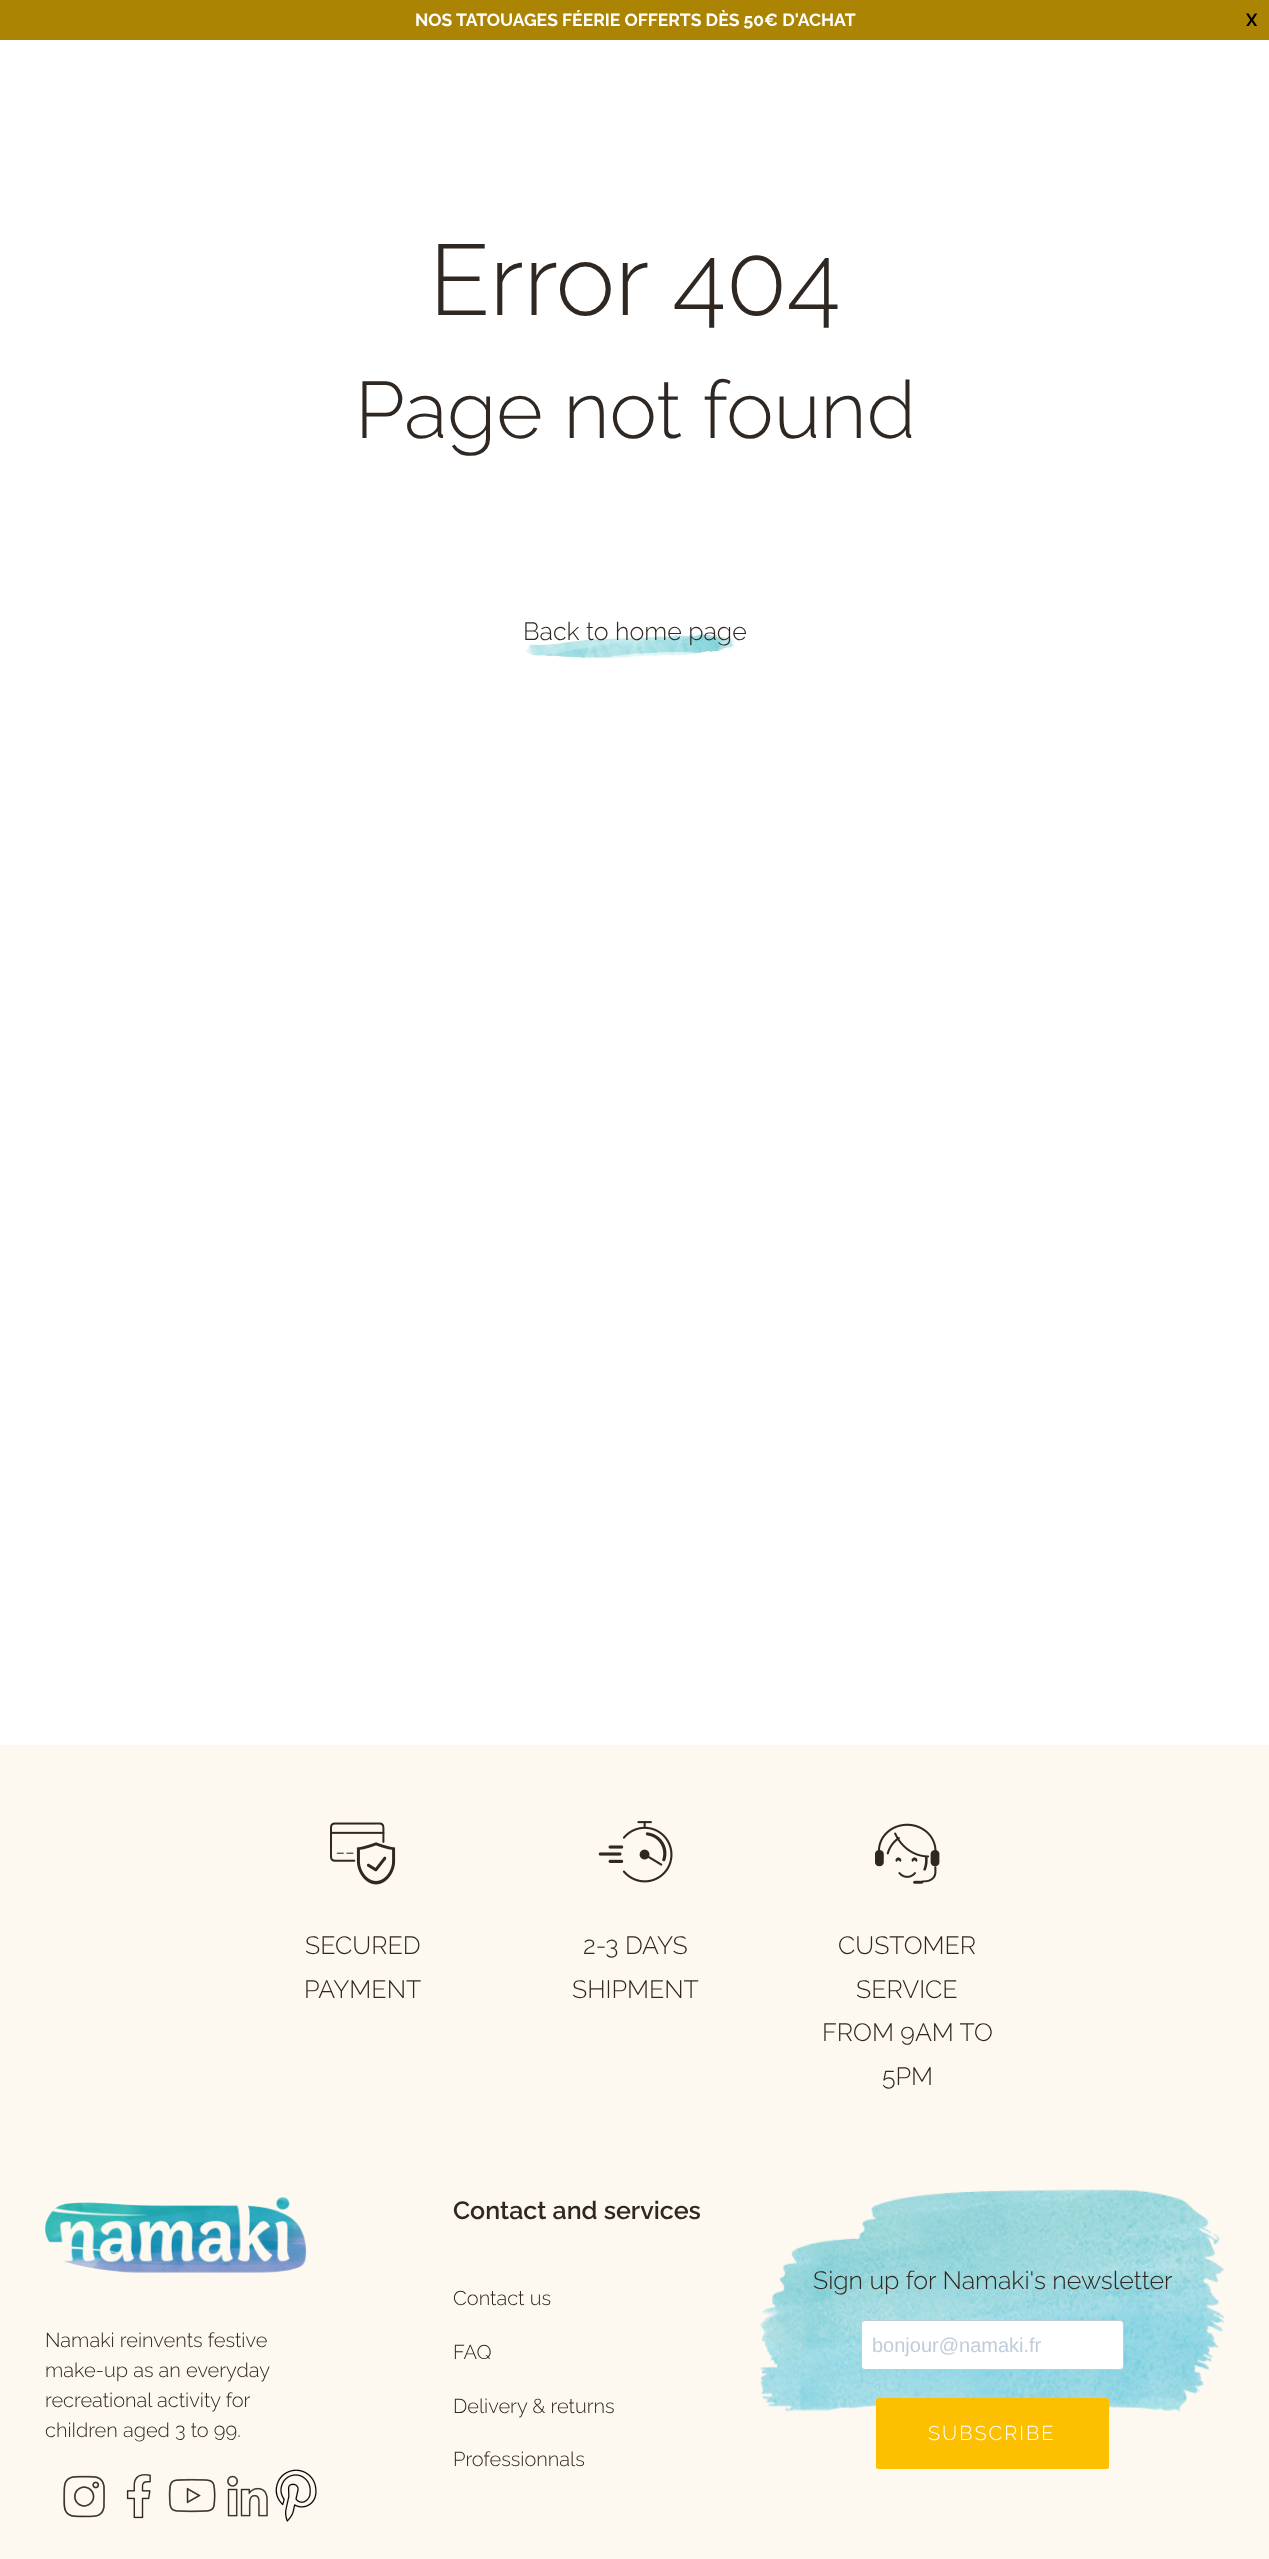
<svg xmlns="http://www.w3.org/2000/svg" xmlns:xlink="http://www.w3.org/1999/xlink" width="1269" height="2559" viewBox="0 0 1269 2559">
<style>
.cls-1{font:bold 17.5px Raleway;fill:#ffffff}
.cls-2{font:bold 17.5px Raleway;fill:#000000}
.cls-3{font:300 100px Raleway;fill:#2f2722}
.cls-4{font:300 80px Raleway;fill:#2f2722}
.cls-5{font:300 25px Raleway;fill:#2f2722}
.cls-6{font:300 20px Raleway;fill:#2f2722}
.cls-7{font:300 20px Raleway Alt;fill:#2f2722}
.cls-8{font:600 25px Raleway;fill:#2f2722}
.cls-9{font:20px Liberation Sans;fill:#c0ccda}
.cls-10{font:300 20px Raleway;letter-spacing:2px;fill:#ffffff}
</style>
<rect width="100%" height="100%" fill="#ffffff"/>
<rect fill="#ac8404" x="0" y="0" width="1269" height="40"/>
<image xlink:href="image0.png" x="525" y="634" width="210" height="24"/>
<rect fill="#fdf9f1" x="0" y="1745" width="1269" height="814"/>
<image xlink:href="image1.png" x="330" y="1822" width="66" height="63"/>
<image xlink:href="image2.png" x="598" y="1821" width="75" height="62"/>
<image xlink:href="image3.png" x="875" y="1823" width="65" height="61"/>
<image xlink:href="image4.png" x="45" y="2197" width="262" height="76"/>
<image xlink:href="image5.png" x="63" y="2475" width="42" height="43"/>
<image xlink:href="image6.png" x="126" y="2474" width="25" height="45"/>
<image xlink:href="image7.png" x="168" y="2478" width="48" height="35"/>
<image xlink:href="image8.png" x="227" y="2475" width="41" height="42"/>
<image xlink:href="image9.png" x="275" y="2469" width="42" height="53"/>
<image xlink:href="image10.png" x="760" y="2189" width="465" height="223"/>
<rect fill="#ffffff" stroke="#c0ccda" x="861.5" y="2320.5" width="262" height="49" rx="3.5"/>
<rect fill="#fcc000" x="876" y="2398" width="233" height="71" rx="2.5"/>
<text class="cls-1" x="415" y="26">NOS TATOUAGES FÉERIE OFFERTS DÈS 50€ D'ACHAT</text>
<text class="cls-2" x="1246" y="26">X</text>
<text class="cls-3" x="429" y="315">Error 404</text>
<text class="cls-4" x="355" y="438">Page not found</text>
<text class="cls-5" x="523" y="640">Back to home page</text>
<text class="cls-5" x="305" y="1954">SECURED</text>
<text class="cls-5" x="304" y="1998">PAYMENT</text>
<text class="cls-5" x="583" y="1954">2-3 DAYS</text>
<text class="cls-5" x="572" y="1998">SHIPMENT</text>
<text class="cls-5" x="838" y="1954">CUSTOMER</text>
<text class="cls-5" x="856" y="1998">SERVICE</text>
<text class="cls-5" x="822" y="2041">FROM 9AM TO</text>
<text class="cls-5" x="882" y="2085">5PM</text>
<text class="cls-6"><tspan x="45" y="2347">Namaki reinvents festive</tspan><tspan x="45" y="2377">make-up as an everyday</tspan><tspan x="45" y="2407">recreational activity for</tspan></text>
<text class="cls-7" x="45" y="2437">children aged 3 to 99.</text>
<text class="cls-8" x="453" y="2219">Contact and services</text>
<text class="cls-6" x="453" y="2305">Contact us</text>
<text class="cls-6" x="453" y="2359">FAQ</text>
<text class="cls-6" x="453" y="2413">Delivery &amp; returns</text>
<text class="cls-6" x="453" y="2466">Professionnals</text>
<text class="cls-5" x="813" y="2289">Sign up for Namaki's newsletter</text>
<text class="cls-9" x="872" y="2352">bonjour@namaki.fr</text>
<text class="cls-10" x="928" y="2440">SUBSCRIBE</text>
</svg>
